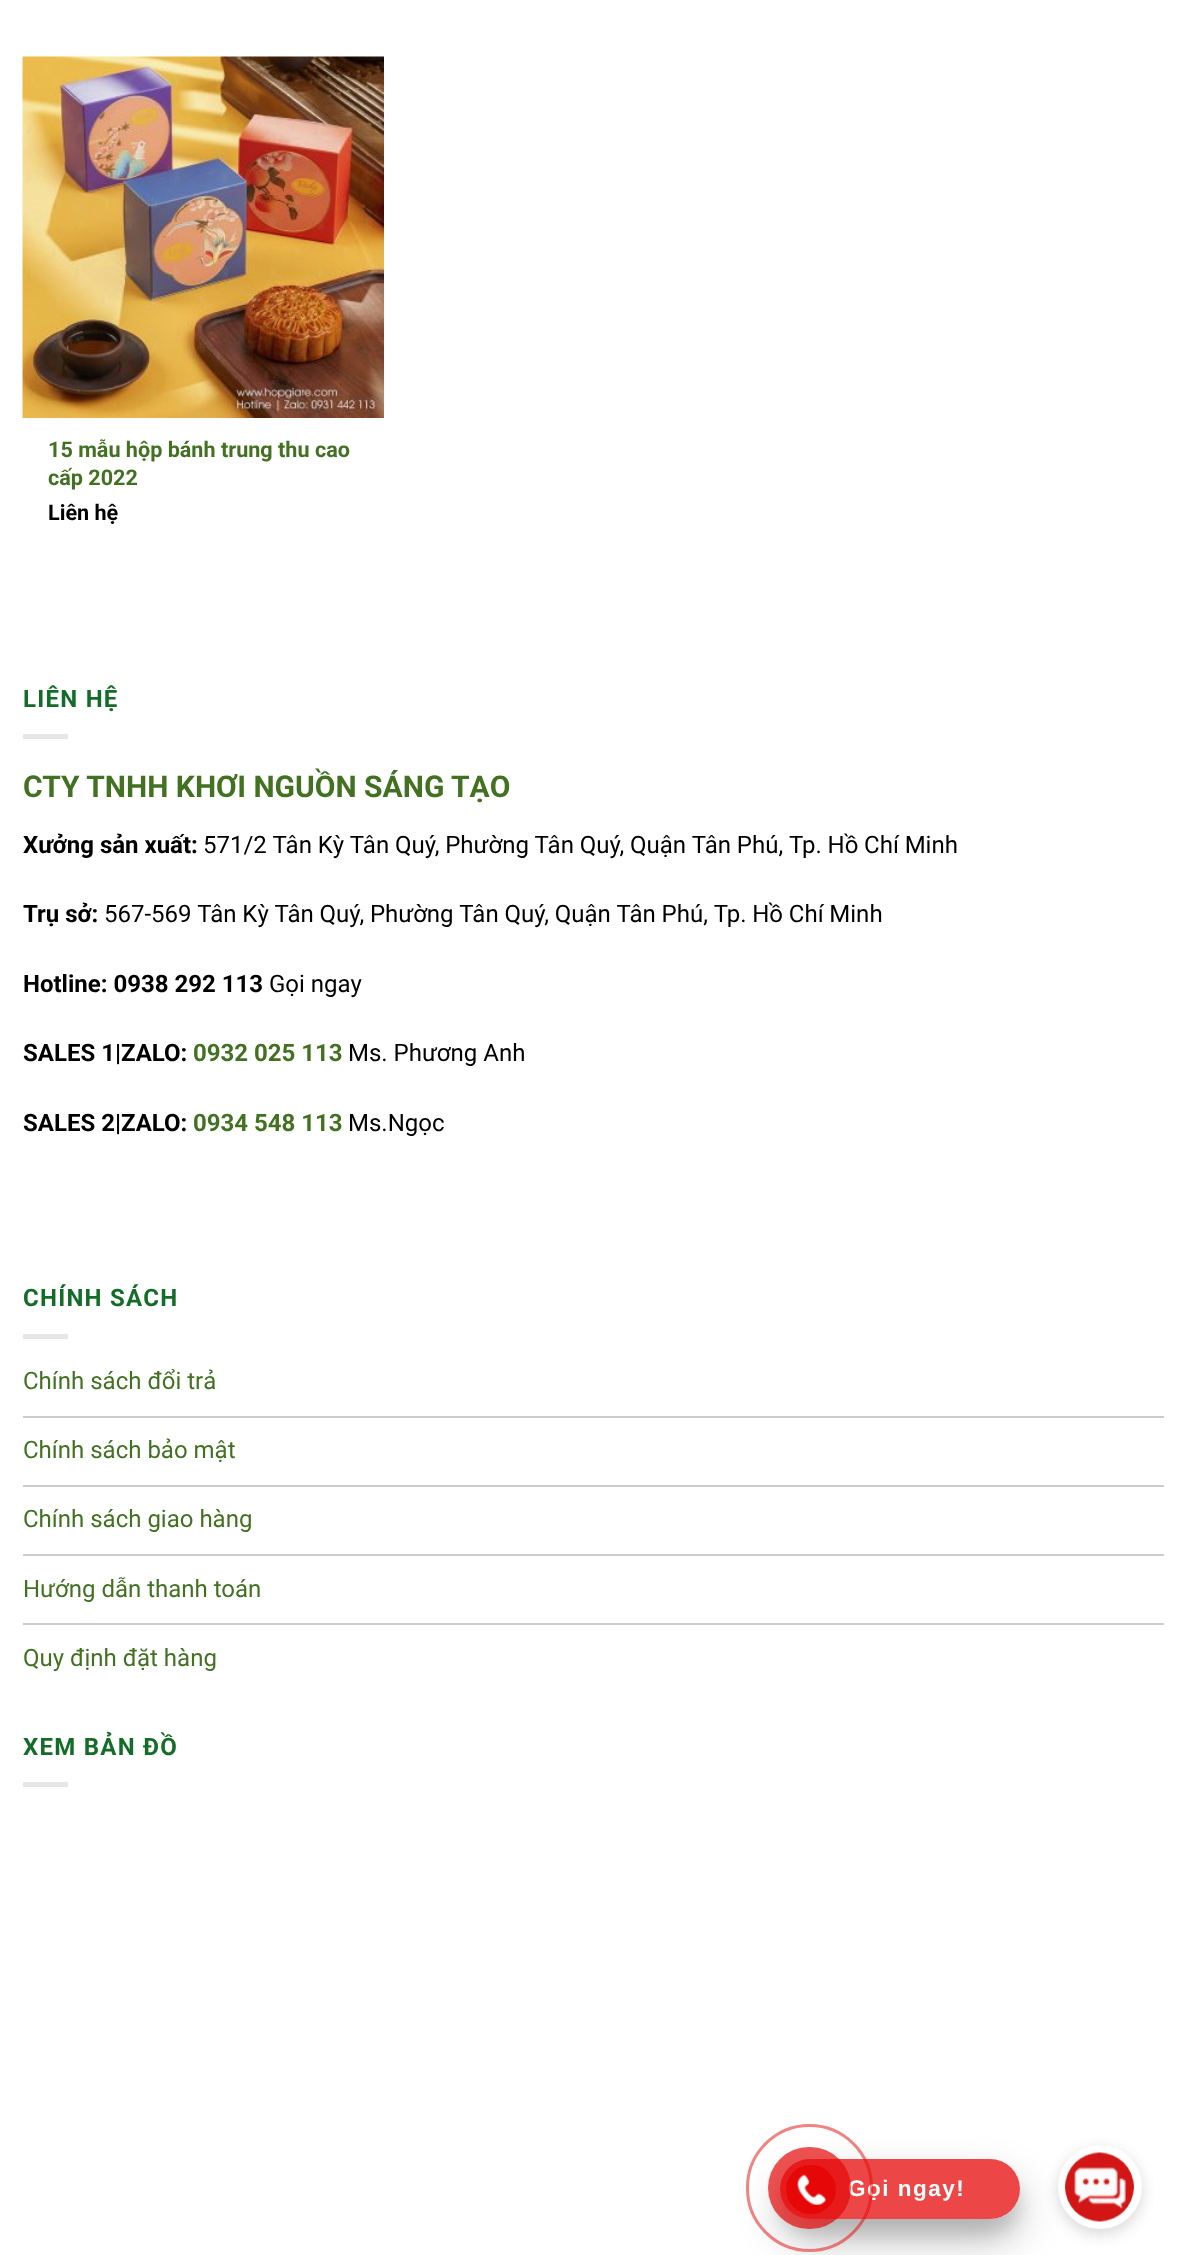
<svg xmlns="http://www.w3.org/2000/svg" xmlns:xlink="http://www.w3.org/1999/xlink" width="1186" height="2255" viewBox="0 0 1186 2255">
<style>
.cls-1{font:bold 21.6px Roboto;fill:#437122}
.cls-2{font:bold 21.6px Roboto;fill:#000000}
.cls-3{font:bold 24px Roboto;letter-spacing:1.25px;fill:#136d28}
.cls-4{font:bold 30px Roboto;fill:#437122}
.cls-5{font:bold 24px Roboto;fill:#000000}
.cls-6{font:24px Roboto;fill:#000000}
.cls-7{font:bold 24px Roboto;fill:#437122}
.cls-8{font:24px Roboto;fill:#437122}
.cls-9{font:bold 22.5px Liberation Sans;letter-spacing:1.5px;fill:#ffffff}
</style>
<defs>
<clipPath id="clip1"><path d="M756 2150H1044V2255H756ZM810 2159H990C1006.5 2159 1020 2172.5 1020 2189C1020 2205.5 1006.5 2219 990 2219H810C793.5 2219 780 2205.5 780 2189C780 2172.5 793.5 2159 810 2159Z" clip-rule="evenodd"/></clipPath>
<clipPath id="clip2"><path d="M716 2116H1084V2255H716ZM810 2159H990C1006.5 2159 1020 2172.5 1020 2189C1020 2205.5 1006.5 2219 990 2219H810C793.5 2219 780 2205.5 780 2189C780 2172.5 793.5 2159 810 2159Z" clip-rule="evenodd"/></clipPath>
</defs>
<rect width="100%" height="100%" fill="#ffffff"/>
<image xlink:href="image0.png" x="22" y="56" width="362" height="362"/>
<rect fill="#e6e6e6" x="23" y="734" width="45" height="5"/>
<rect fill="#e6e6e6" x="23" y="1334" width="45" height="5"/>
<rect fill="#cccccc" x="23" y="1416" width="1141" height="2"/>
<rect fill="#cccccc" x="23" y="1485" width="1141" height="2"/>
<rect fill="#cccccc" x="23" y="1554" width="1141" height="2"/>
<rect fill="#cccccc" x="23" y="1623" width="1141" height="2"/>
<rect fill="#e6e6e6" x="23" y="1782" width="45" height="5"/>
<g clip-path="url(#clip1)">
<rect fill="#000000" fill-opacity="0.1" filter="blur(7.5px)" x="780" y="2174" width="240" height="60" rx="30"/>
</g>
<g clip-path="url(#clip2)">
<rect fill="#000000" fill-opacity="0.25" filter="blur(21px)" x="780" y="2180" width="240" height="60" rx="30"/>
</g>
<rect fill="#e60808" fill-opacity="0.75" x="780" y="2159" width="240" height="60" rx="30"/>
<rect fill="#000000" fill-opacity="0.08" filter="blur(7.5px)" x="1058" y="2150" width="84" height="84" rx="42"/>
<rect fill="#000000" fill-opacity="0.08" filter="blur(7.5px)" x="1058" y="2150" width="84" height="84" rx="42"/>
<circle fill="#ffffff" stroke="#ffffff" stroke-width="8" cx="1100" cy="2187" r="38"/>
<image xlink:href="image2.png" x="1065" y="2152" width="69" height="70"/>
<text class="cls-1"><tspan x="48" y="457">15 mẫu hộp bánh trung thu cao</tspan><tspan x="48" y="485">cấp 2022</tspan></text>
<text class="cls-2" x="48" y="520">Liên hệ</text>
<text class="cls-3" x="23" y="707">LIÊN HỆ</text>
<text class="cls-4" x="23" y="797">CTY TNHH KHƠI NGUỒN SÁNG TẠO</text>
<text class="cls-5" x="23" y="853">Xưởng sản xuất:</text>
<text class="cls-6" x="203" y="853" word-spacing="-0.2">571/2 Tân Kỳ Tân Quý, Phường Tân Quý, Quận Tân Phú, Tp. Hồ Chí Minh</text>
<text class="cls-5" x="23" y="922">Trụ sở:</text>
<text class="cls-6" x="104" y="922" word-spacing="-0.2">567-569 Tân Kỳ Tân Quý, Phường Tân Quý, Quận Tân Phú, Tp. Hồ Chí Minh</text>
<text class="cls-5" x="23" y="992">Hotline: 0938 292 113</text>
<text class="cls-6" x="269" y="992">Gọi ngay</text>
<text class="cls-5" x="23" y="1061">SALES 1|ZALO:</text>
<text class="cls-7" x="193" y="1061">0932 025 113</text>
<text class="cls-6" x="348" y="1061">Ms. Phương Anh</text>
<text class="cls-5" x="23" y="1131">SALES 2|ZALO:</text>
<text class="cls-7" x="193" y="1131">0934 548 113</text>
<text class="cls-6" x="348" y="1131">Ms.Ngọc</text>
<text class="cls-3" x="23" y="1306">CHÍNH SÁCH</text>
<text class="cls-8" x="23" y="1389">Chính sách đổi trả</text>
<text class="cls-8" x="23" y="1458">Chính sách bảo mật</text>
<text class="cls-8" x="23" y="1527">Chính sách giao hàng</text>
<text class="cls-8" x="23" y="1597">Hướng dẫn thanh toán</text>
<text class="cls-8" x="23" y="1666">Quy định đặt hàng</text>
<text class="cls-3" x="23" y="1755">XEM BẢN ĐỒ</text>
<text class="cls-9" x="848" y="2196">Gọi ngay!</text>
<rect fill="none" stroke="#e60808" stroke-opacity="0.5" stroke-width="3" x="747.5" y="2125.5" width="124" height="125" rx="62"/>
<rect fill="#e60808" fill-opacity="0.7" x="768" y="2147" width="83" height="82" rx="41"/>
<rect fill="#e60808" x="786" y="2165" width="50" height="49" rx="24.5"/>
<image xlink:href="image1.png" x="797" y="2174" width="29" height="31"/>
</svg>
